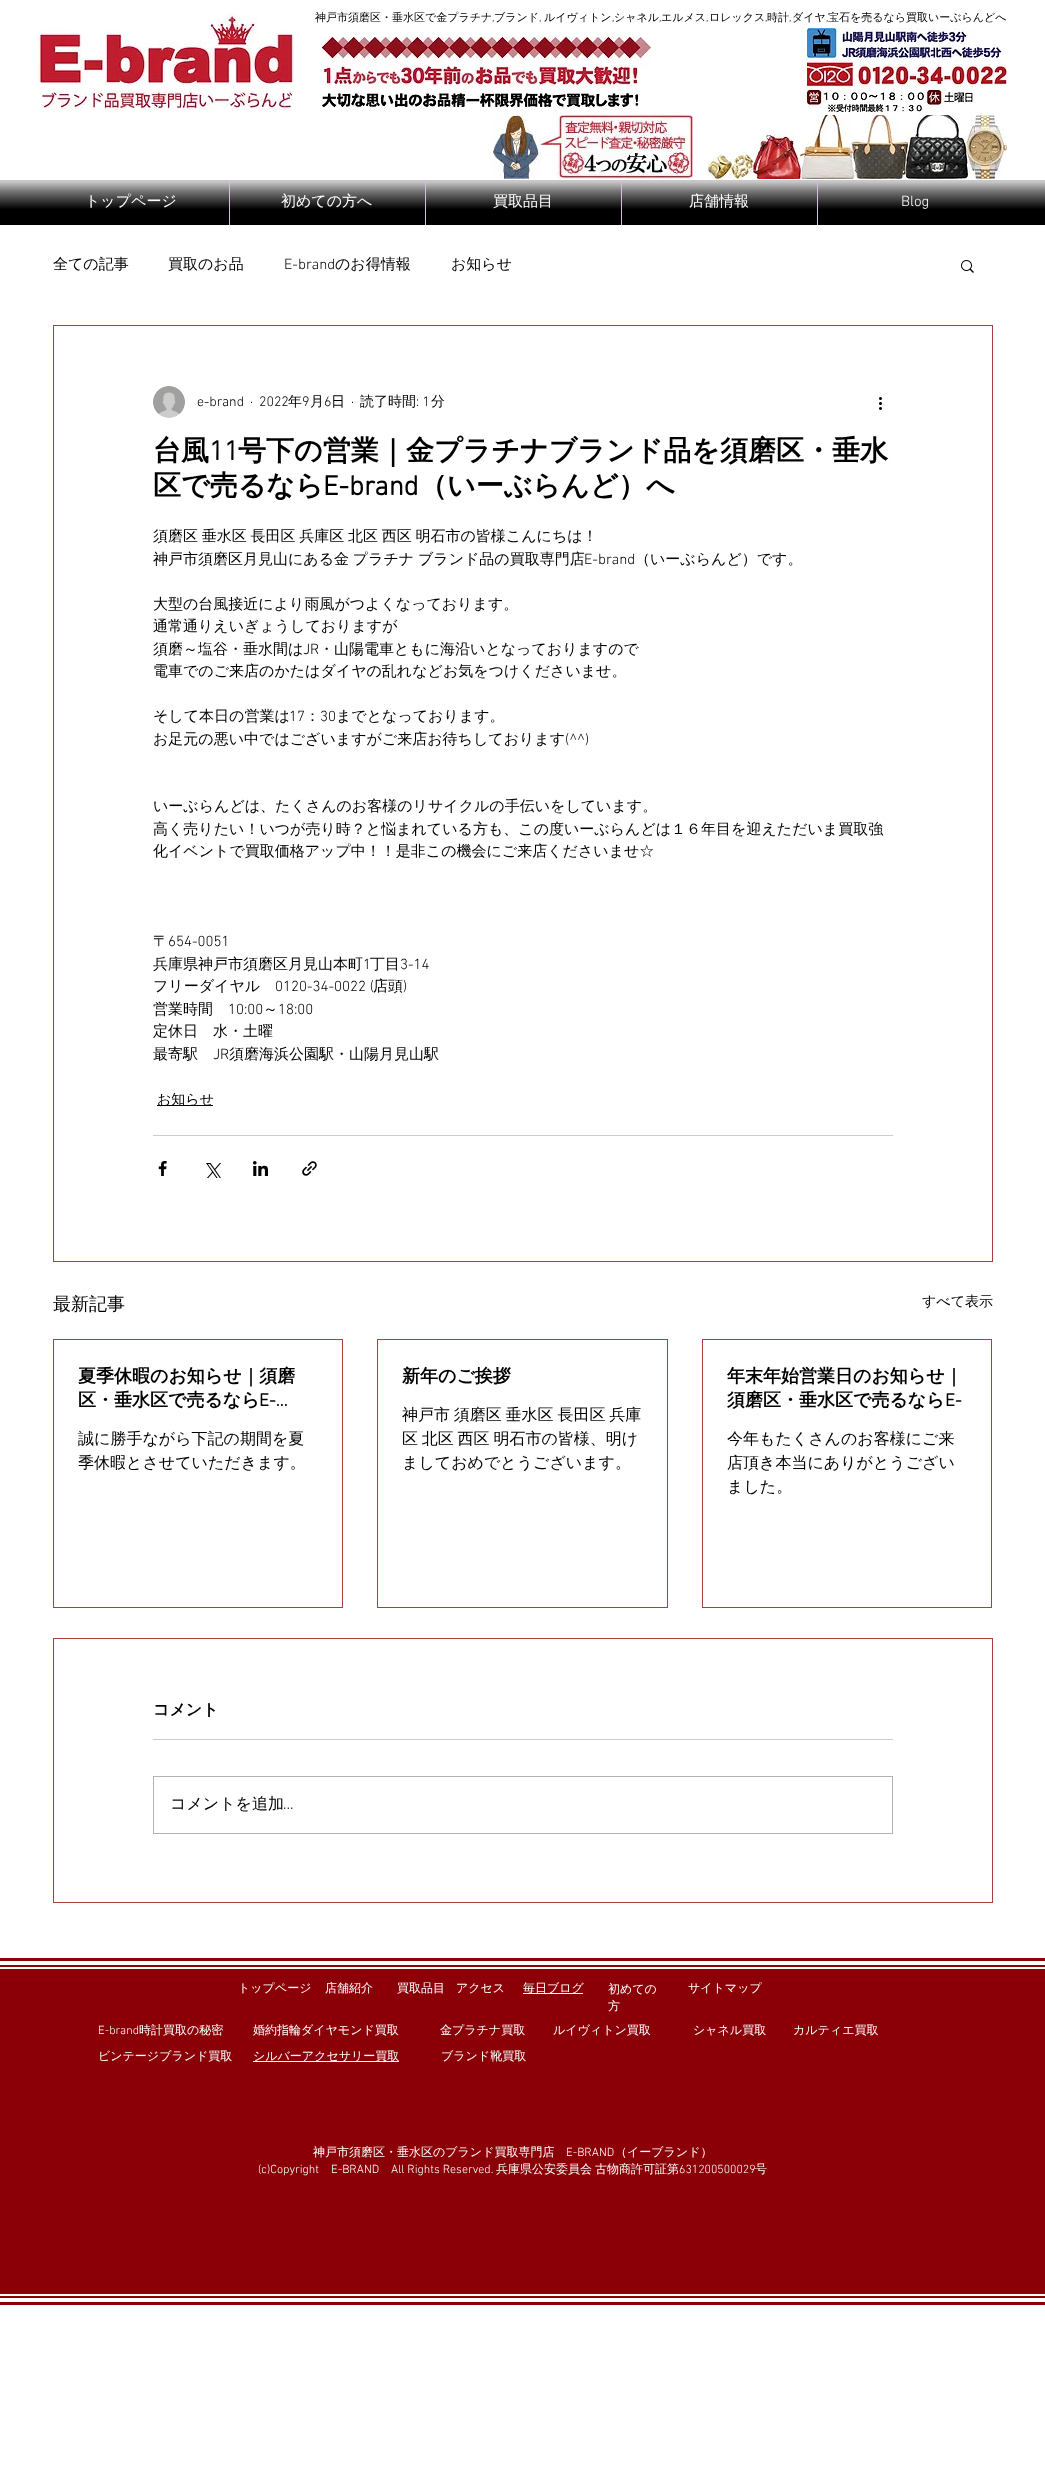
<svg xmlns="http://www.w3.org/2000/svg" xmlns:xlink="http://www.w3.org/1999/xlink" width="1045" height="2465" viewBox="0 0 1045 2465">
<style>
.cls-1{font:500 11px WenQuanYi Zen Hei;fill:#000000}
.cls-2{font:300 11px 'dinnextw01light';fill:#000000}
.cls-3{font:500 15px WenQuanYi Zen Hei;fill:#ffffff}
.cls-4{font:300 15px 'dinnextw01light';fill:#ffffff}
.cls-5{font:500 15px WenQuanYi Zen Hei;fill:#000000}
.cls-6{font:300 15px 'dinnextw01light';fill:#000000}
.cls-7{font:300 14px 'dinnextw01light';fill:#000000}
.cls-8{font:500 14px WenQuanYi Zen Hei;fill:#000000}
.cls-9{font:bold 28px WenQuanYi Zen Hei;fill:#000000}
.cls-10{font:bold 28px 'dinnextw01light';fill:#000000}
.cls-11{font:500 18px WenQuanYi Zen Hei;fill:#000000}
.cls-12{font:bold 18px WenQuanYi Zen Hei;fill:#000000}
.cls-13{font:bold 18px 'dinnextw01light';fill:#000000}
.cls-14{font:500 16px WenQuanYi Zen Hei;fill:#000000}
.cls-15{font:bold 16px WenQuanYi Zen Hei;fill:#000000}
.cls-16{font:300 16px 'dinnextw01light';fill:#000000}
.cls-17{font:500 12px WenQuanYi Zen Hei;fill:#ffffff}
.cls-18{font:300 12px 'dinnextw01light';fill:#ffffff}
</style>
<defs>
<linearGradient id="g1" gradientUnits="userSpaceOnUse" x1="523" y1="225" x2="523" y2="180"><stop offset="0.35" stop-color="#000000"/><stop offset="0.75" stop-color="#757575"/><stop offset="0.96" stop-color="#c7c7c7"/></linearGradient>
<clipPath id="clip1"><rect x="78" y="1428" width="240" height="48"/></clipPath>
</defs>
<rect width="100%" height="100%" fill="#ffffff"/>
<image xlink:href="image0.png" x="33" y="12" width="263" height="98"/>
<image xlink:href="image1.png" x="321" y="37" width="330" height="70"/>
<image xlink:href="image2.png" x="807" y="28" width="200" height="84"/>
<image xlink:href="image3.png" x="493" y="115" width="200" height="64"/>
<image xlink:href="image4.png" x="707" y="115" width="300" height="64"/>
<rect fill="url(#g1)" x="0" y="180" width="1045" height="45"/>
<rect fill="#d8bde2" x="229" y="180" width="1" height="45"/>
<rect fill="#d8bde2" x="425" y="180" width="1" height="45"/>
<rect fill="#d8bde2" x="621" y="180" width="1" height="45"/>
<rect fill="#d8bde2" x="817" y="180" width="1" height="45"/>
<image xlink:href="image5.png" x="961" y="260" width="13" height="13"/>
<rect fill="none" stroke="#a84040" x="53.5" y="325.5" width="939" height="936"/>
<image xlink:href="image6.png" x="153" y="386" width="32" height="32"/>
<image xlink:href="image7.png" x="879" y="397" width="3" height="13"/>
<rect fill="#000000" x="157" y="1105" width="56" height="1"/>
<rect fill="#cccccc" x="153" y="1135" width="740" height="1"/>
<image xlink:href="image8.png" x="158" y="1161" width="9" height="15"/>
<image xlink:href="image9.png" x="206" y="1163" width="15" height="15"/>
<image xlink:href="image10.png" x="253" y="1161" width="15" height="15"/>
<image xlink:href="image11.png" x="302" y="1161" width="15" height="15"/>
<rect fill="none" stroke="#a84040" x="53.5" y="1339.5" width="289" height="268"/>
<rect fill="none" stroke="#a84040" x="377.5" y="1339.5" width="290" height="268"/>
<rect fill="none" stroke="#a84040" x="702.5" y="1339.5" width="289" height="268"/>
<rect fill="none" stroke="#a84040" x="53.5" y="1638.5" width="939" height="264"/>
<rect fill="#cccccc" x="153" y="1739" width="740" height="1"/>
<rect fill="none" stroke="#b3b3b3" x="153.5" y="1776.5" width="739" height="57"/>
<rect fill="#8b0007" x="0" y="1958" width="1045" height="347"/>
<rect fill="#ffffff" x="0" y="1961" width="1045" height="4"/>
<rect fill="#ffffff" x="0" y="2298" width="1045" height="4"/>
<rect fill="#ffffff" x="0" y="1967" width="1045" height="2"/>
<rect fill="#ffffff" x="0" y="2294" width="1045" height="2"/>
<rect fill="#ffffff" x="523" y="1993" width="60" height="1"/>
<rect fill="#ffffff" x="253" y="2061" width="146" height="1"/>
<text class="cls-1" x="315" y="21">神戸市須磨区・垂水区で金プラチナ</text>
<text class="cls-2" x="492" y="21">,</text>
<text class="cls-1" x="494" y="21">ブランド</text>
<text class="cls-2" x="539" y="21">,</text>
<text class="cls-1" x="544" y="21">ルイヴィトン</text>
<text class="cls-2" x="612" y="21">,</text>
<text class="cls-1" x="614" y="21">シャネル</text>
<text class="cls-2" x="659" y="21">,</text>
<text class="cls-1" x="661" y="21">エルメス</text>
<text class="cls-2" x="706" y="21">,</text>
<text class="cls-1" x="709" y="21">ロレックス</text>
<text class="cls-2" x="765" y="21">,</text>
<text class="cls-1" x="767" y="21">時計</text>
<text class="cls-2" x="789" y="21">,</text>
<text class="cls-1" x="792" y="21">ダイヤ</text>
<text class="cls-2" x="826" y="21">,</text>
<text class="cls-1" x="828" y="21">宝石を売るなら買取いーぶらんどへ</text>
<text class="cls-3" x="85" y="206">トップページ</text>
<text class="cls-3" x="281" y="206">初めての方へ</text>
<text class="cls-3" x="493" y="206">買取品目</text>
<text class="cls-3" x="689" y="206">店舗情報</text>
<text class="cls-4" x="901" y="206">Blog</text>
<text class="cls-5" x="53" y="269">全ての記事</text>
<text class="cls-5" x="168" y="269">買取のお品</text>
<text class="cls-6" x="284" y="269">E-brand</text>
<text class="cls-5" x="335" y="269">のお得情報</text>
<text class="cls-5" x="451" y="269">お知らせ</text>
<text class="cls-7" x="197" y="406">e-brand</text>
<text class="cls-7" x="250" y="406">·</text>
<text class="cls-7" x="259" y="406">2022</text>
<text class="cls-8" x="288" y="406">年</text>
<text class="cls-7" x="302" y="406">9</text>
<text class="cls-8" x="310" y="406">月</text>
<text class="cls-7" x="324" y="406">6</text>
<text class="cls-8" x="331" y="406">日</text>
<text class="cls-7" x="351" y="406">·</text>
<text class="cls-8" x="360" y="406">読了時間</text>
<text class="cls-7" x="416" y="406">: 1</text>
<text class="cls-8" x="431" y="406">分</text>
<text class="cls-9" x="153" y="460">台風</text>
<text class="cls-10" x="209" y="460">11</text>
<text class="cls-9" x="238" y="460">号下の営業｜金プラチナブランド品を須磨区・垂水</text>
<text class="cls-9" x="153" y="495">区で売るなら</text>
<text class="cls-10" x="323" y="495">E-brand</text>
<text class="cls-9" x="419" y="495">（いーぶらんど）へ</text>
<text class="cls-5"><tspan x="153" y="541" word-spacing="-0.75">須磨区 垂水区 長田区 兵庫区 北区 西区 明石市の皆様こんにちは！</tspan><tspan x="153" y="564" word-spacing="-0.75">神戸市須磨区月見山にある金 プラチナ ブランド品の買取専門店</tspan></text>
<text class="cls-6" x="584" y="564">E-brand</text>
<text class="cls-5" x="635" y="564">（いーぶらんど）です。</text>
<text class="cls-5"><tspan x="153" y="609">大型の台風接近により雨風がつよくなっております。</tspan><tspan x="153" y="631">通常通りえいぎょうしておりますが</tspan><tspan x="153" y="654">須磨～塩谷・垂水間は</tspan></text>
<text class="cls-6" x="303" y="654">JR</text>
<text class="cls-5" x="319" y="654">・山陽電車ともに海沿いとなっておりますので</text>
<text class="cls-5" x="153" y="676">電車でのご来店のかたはダイヤの乱れなどお気をつけくださいませ。</text>
<text class="cls-5" x="153" y="721">そして本日の営業は</text>
<text class="cls-6" x="289" y="721">17</text>
<text class="cls-5" x="305" y="721">：</text>
<text class="cls-6" x="320" y="721">30</text>
<text class="cls-5" x="336" y="721">までとなっております。</text>
<text class="cls-5" x="153" y="744">お足元の悪い中ではございますがご来店お待ちしております</text>
<text class="cls-6" x="565" y="744">(^^)</text>
<text class="cls-5"><tspan x="153" y="811">いーぶらんどは、たくさんのお客様のリサイクルの手伝いをしています。</tspan><tspan x="153" y="834">高く売りたい！いつが売り時？と悩まれている方も、この度いーぶらんどは１６年目を迎えただいま買取強</tspan><tspan x="153" y="856">化イベントで買取価格アップ中！！是非この機会にご来店くださいませ☆</tspan></text>
<text class="cls-5" x="153" y="946">〒</text>
<text class="cls-6" x="168" y="946">654-0051</text>
<text class="cls-5" x="153" y="969">兵庫県神戸市須磨区月見山本町</text>
<text class="cls-6" x="363" y="969">1</text>
<text class="cls-5" x="370" y="969">丁目</text>
<text class="cls-6" x="400" y="969">3-14</text>
<text class="cls-5" x="153" y="991">フリーダイヤル</text>
<text class="cls-6" x="275" y="991">0120-34-0022 (</text>
<text class="cls-5" x="373" y="991">店頭</text>
<text class="cls-6" x="403" y="991">)</text>
<text class="cls-5" x="153" y="1014">営業時間</text>
<text class="cls-6" x="228" y="1014">10:00</text>
<text class="cls-5" x="263" y="1014">～</text>
<text class="cls-6" x="278" y="1014">18:00</text>
<text class="cls-5"><tspan x="153" y="1036">定休日　水・土曜</tspan><tspan x="153" y="1059">最寄駅</tspan></text>
<text class="cls-6" x="213" y="1059">JR</text>
<text class="cls-5" x="229" y="1059">須磨海浜公園駅・山陽月見山駅</text>
<text class="cls-8" x="157" y="1104">お知らせ</text>
<text class="cls-11" x="53" y="1310">最新記事</text>
<text class="cls-8" x="922" y="1306">すべて表示</text>
<text class="cls-12"><tspan x="78" y="1382">夏季休暇のお知らせ｜須磨</tspan><tspan x="78" y="1406">区・垂水区で売るなら</tspan></text>
<text class="cls-13" x="259" y="1406">E-…</text>
<g clip-path="url(#clip1)">
<text class="cls-14" x="78" y="1444">誠に勝手ながら下記の期間を夏</text>
</g>
<text class="cls-14" x="78" y="1468">季休暇とさせていただきます。</text>
<text class="cls-12" x="402" y="1382">新年のご挨拶</text>
<text class="cls-14"><tspan x="402" y="1420" word-spacing="-1">神戸市 須磨区 垂水区 長田区 兵庫</tspan><tspan x="402" y="1444" word-spacing="-1">区 北区 西区 明石市の皆様、明け</tspan><tspan x="402" y="1468">ましておめでとうございます。</tspan></text>
<text class="cls-12"><tspan x="727" y="1382">年末年始営業日のお知らせ｜</tspan><tspan x="727" y="1406">須磨区・垂水区で売るなら</tspan></text>
<text class="cls-13" x="945" y="1406">E-</text>
<text class="cls-14"><tspan x="727" y="1444">今年もたくさんのお客様にご来</tspan><tspan x="727" y="1468">店頂き本当にありがとうござい</tspan><tspan x="727" y="1492">ました。</tspan></text>
<text class="cls-15" x="153" y="1715">コメント</text>
<text class="cls-14" x="170" y="1809">コメントを追加</text>
<text class="cls-16" x="283" y="1809">…</text>
<text class="cls-17" x="238" y="1992">トップページ</text>
<text class="cls-17" x="325" y="1992">店舗紹介</text>
<text class="cls-17" x="397" y="1992">買取品目</text>
<text class="cls-17" x="456" y="1992">アクセス</text>
<text class="cls-17" x="523" y="1992">毎日ブログ</text>
<text class="cls-17"><tspan x="608" y="1993">初めての</tspan><tspan x="608" y="2010">方</tspan></text>
<text class="cls-17" x="688" y="1992">サイトマップ</text>
<text class="cls-18" x="98" y="2034">E-brand</text>
<text class="cls-17" x="139" y="2034">時計買取の秘密</text>
<text class="cls-17" x="253" y="2034">婚約指輪ダイヤモンド買取</text>
<text class="cls-17" x="440" y="2034">金プラチナ買取</text>
<text class="cls-17" x="553" y="2034">ルイヴィトン買取</text>
<text class="cls-17" x="693" y="2034">シャネル買取</text>
<text class="cls-17" x="793" y="2034">カルティエ買取</text>
<text class="cls-17" x="98" y="2060">ビンテージブランド買取</text>
<text class="cls-17" x="253" y="2060">シルバーアクセサリー買取</text>
<text class="cls-17" x="441" y="2060">ブランド靴買取</text>
<text class="cls-17" x="313" y="2156">神戸市須磨区・垂水区のブランド買取専門店</text>
<text class="cls-18" x="566" y="2156">E-BRAND</text>
<text class="cls-17" x="615" y="2156">（イーブランド）</text>
<text class="cls-18" x="258" y="2173">(c)Copyright</text>
<text class="cls-18" x="331" y="2173">E-BRAND</text>
<text class="cls-18" x="391" y="2173">All Rights Reserved.</text>
<text class="cls-17" x="496" y="2173">兵庫県公安委員会</text>
<text class="cls-17" x="595" y="2173">古物商許可証第</text>
<text class="cls-18" x="679" y="2173">631200500029</text>
<text class="cls-17" x="755" y="2173">号</text>
</svg>
